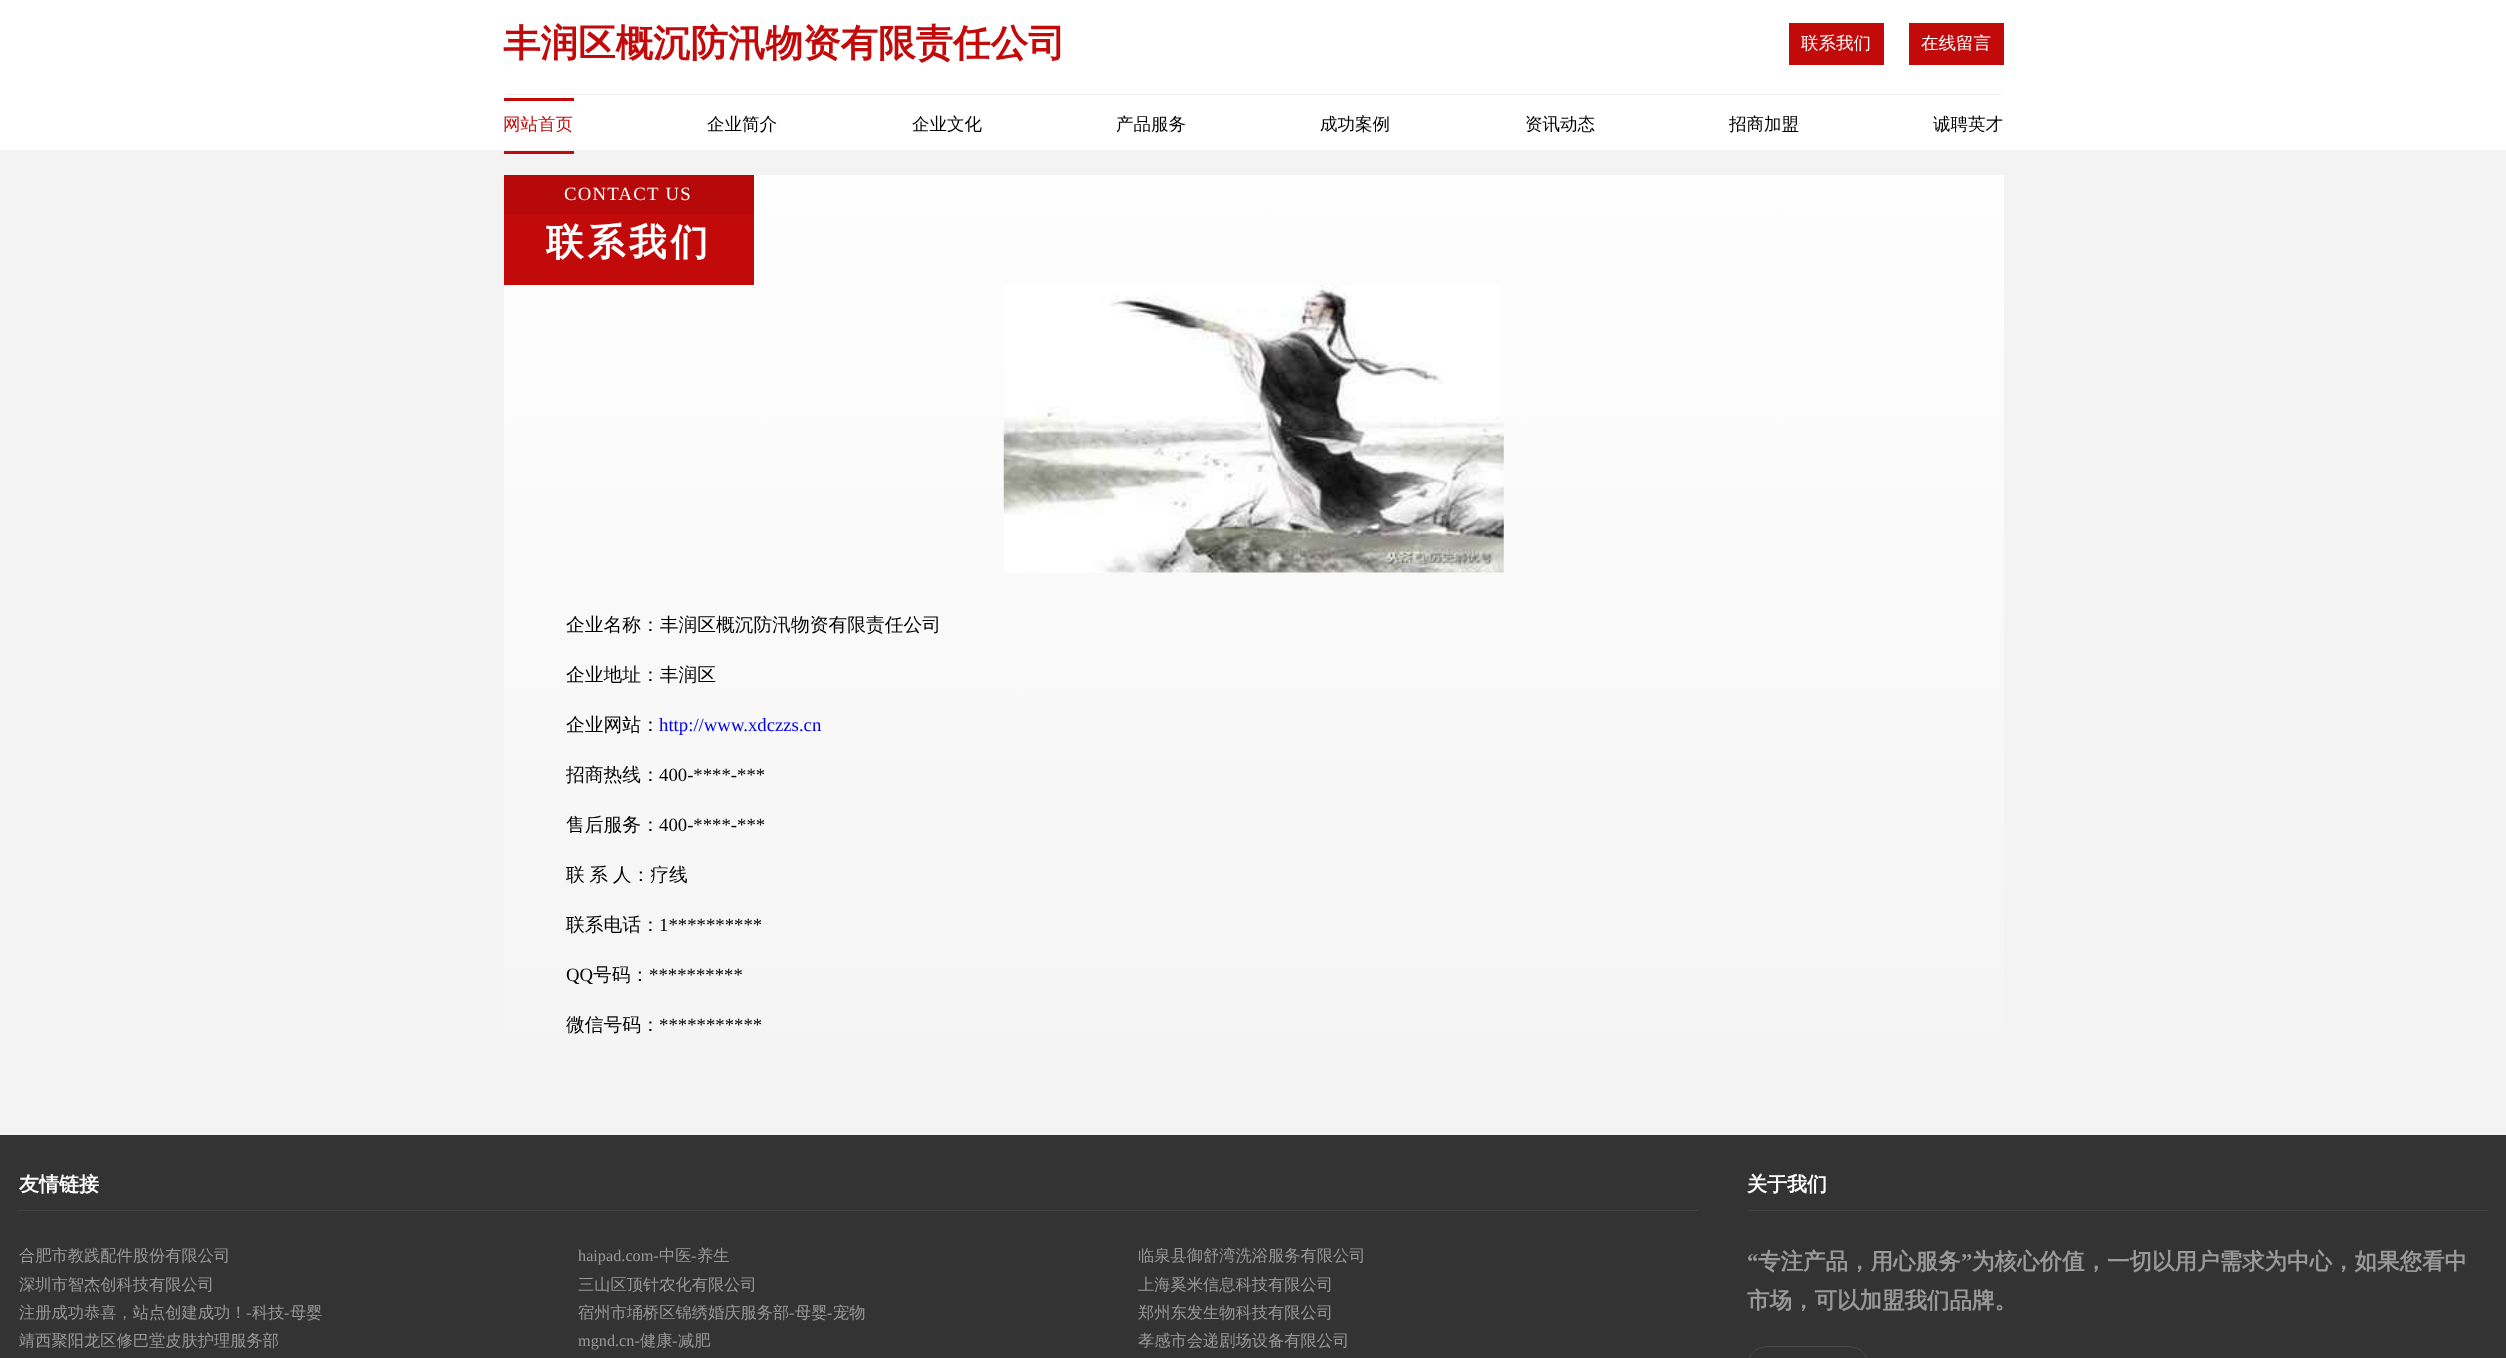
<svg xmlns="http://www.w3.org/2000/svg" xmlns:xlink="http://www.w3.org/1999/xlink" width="2506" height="1358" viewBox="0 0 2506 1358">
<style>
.cls-1{font:bold 37.5px WenQuanYi Zen Hei;fill:#c30a0a}
.cls-2{font:500 17.5px WenQuanYi Zen Hei;fill:#ffffff}
.cls-3{font:500 17.5px WenQuanYi Zen Hei;fill:#c30a0a}
.cls-4{font:500 17.5px WenQuanYi Zen Hei;fill:#000000}
.cls-5{font:18.75px Liberation Serif;letter-spacing:1.25px;fill:#ffffff}
.cls-6{font:bold 37.5px WenQuanYi Zen Hei;letter-spacing:4px;fill:#ffffff}
.cls-7{font:500 18.75px WenQuanYi Zen Hei;fill:#000000}
.cls-8{font:18.75px Liberation Serif;fill:#0000ee}
.cls-9{font:18.75px Liberation Serif;fill:#000000}
.cls-10{font:bold 20px WenQuanYi Zen Hei;fill:#ffffff}
.cls-11{font:500 16.25px WenQuanYi Zen Hei;fill:#999999}
.cls-12{font:16.25px Liberation Serif;fill:#999999}
.cls-13{font:bold 22.5px Liberation Serif;fill:#999999}
.cls-14{font:bold 22.5px WenQuanYi Zen Hei;fill:#999999}
</style>
<defs>
<clipPath id="clip1"><rect x="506" y="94" width="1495" height="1"/></clipPath>
<linearGradient id="g1" gradientUnits="userSpaceOnUse" x1="1254" y1="175" x2="1254" y2="1085"><stop offset="0" stop-color="#fefefe"/><stop offset="1" stop-color="#f4f4f4"/></linearGradient>
</defs>
<rect width="100%" height="100%" fill="#f3f3f3"/>
<rect fill="#ffffff" x="0" y="0" width="2506" height="150"/>
<g clip-path="url(#clip1)">
<rect fill="#000000" fill-opacity="0.07" filter="blur(0.5px)" x="506" y="0" width="1495" height="95"/>
</g>
<rect fill="#c30a0a" x="1789" y="23" width="95" height="42"/>
<rect fill="#c30a0a" x="1909" y="23" width="95" height="42"/>
<rect fill="#c30a0a" x="504" y="98" width="70" height="3"/>
<rect fill="#c30a0a" x="504" y="151" width="70" height="3"/>
<rect fill="url(#g1)" x="504" y="175" width="1500" height="910" rx="2.5"/>
<rect fill="#c30a0a" x="504" y="175" width="250" height="110"/>
<rect fill="#000000" fill-opacity="0.06" x="504" y="175" width="250" height="39"/>
<image xlink:href="image0.png" x="1003" y="285" width="501" height="288"/>
<rect fill="#333333" x="0" y="1135" width="2506" height="223"/>
<rect fill="#414141" x="19" y="1210" width="1679" height="1"/>
<rect fill="#414141" x="1748" y="1210" width="740" height="1"/>
<rect fill="none" stroke="#484848" x="1748.5" y="1346.5" width="119" height="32" rx="19.5"/>
<text class="cls-1" x="503" y="56">丰润区概沉防汛物资有限责任公司</text>
<text class="cls-2" x="1801" y="49">联系我们</text>
<text class="cls-2" x="1921" y="49">在线留言</text>
<text class="cls-3" x="503" y="130">网站首页</text>
<text class="cls-4" x="707" y="130">企业简介</text>
<text class="cls-4" x="912" y="130">企业文化</text>
<text class="cls-4" x="1116" y="130">产品服务</text>
<text class="cls-4" x="1320" y="130">成功案例</text>
<text class="cls-4" x="1525" y="130">资讯动态</text>
<text class="cls-4" x="1729" y="130">招商加盟</text>
<text class="cls-4" x="1933" y="130">诚聘英才</text>
<text class="cls-5" x="564" y="200">CONTACT US</text>
<text class="cls-6" x="546" y="255">联系我们</text>
<text class="cls-7" x="566" y="631">企业名称：丰润区概沉防汛物资有限责任公司</text>
<text class="cls-7" x="566" y="681">企业地址：丰润区</text>
<text class="cls-7" x="566" y="731">企业网站：</text>
<text class="cls-8" x="659" y="731">http://www.xdczzs.cn</text>
<text class="cls-7" x="566" y="781">招商热线：</text>
<text class="cls-9" x="659" y="781">400-****-***</text>
<text class="cls-7" x="566" y="831">售后服务：</text>
<text class="cls-9" x="659" y="831">400-****-***</text>
<text class="cls-7" x="566" y="881" word-spacing="-1">联 系 人：疗线</text>
<text class="cls-7" x="566" y="931">联系电话：</text>
<text class="cls-9" x="659" y="931">1**********</text>
<text class="cls-9" x="566" y="981">QQ</text>
<text class="cls-7" x="593" y="981">号码：</text>
<text class="cls-9" x="649" y="981">**********</text>
<text class="cls-7" x="566" y="1031">微信号码：</text>
<text class="cls-9" x="659" y="1031">***********</text>
<text class="cls-10" x="19" y="1191">友情链接</text>
<text class="cls-11" x="19" y="1261">合肥市教践配件股份有限公司</text>
<text class="cls-12" x="578" y="1261">haipad.com-</text>
<text class="cls-11" x="659" y="1261">中医</text>
<text class="cls-12" x="691" y="1261">-</text>
<text class="cls-11" x="697" y="1261">养生</text>
<text class="cls-11" x="1138" y="1261">临泉县御舒湾洗浴服务有限公司</text>
<text class="cls-11" x="19" y="1290">深圳市智杰创科技有限公司</text>
<text class="cls-11" x="578" y="1290">三山区顶针农化有限公司</text>
<text class="cls-11" x="1138" y="1290">上海奚米信息科技有限公司</text>
<text class="cls-11" x="19" y="1318">注册成功恭喜，站点创建成功！</text>
<text class="cls-12" x="246" y="1318">-</text>
<text class="cls-11" x="252" y="1318">科技</text>
<text class="cls-12" x="284" y="1318">-</text>
<text class="cls-11" x="290" y="1318">母婴</text>
<text class="cls-11" x="578" y="1318">宿州市埇桥区锦绣婚庆服务部</text>
<text class="cls-12" x="789" y="1318">-</text>
<text class="cls-11" x="795" y="1318">母婴</text>
<text class="cls-12" x="827" y="1318">-</text>
<text class="cls-11" x="833" y="1318">宠物</text>
<text class="cls-11" x="1138" y="1318">郑州东发生物科技有限公司</text>
<text class="cls-11" x="19" y="1346">靖西聚阳龙区修巴堂皮肤护理服务部</text>
<text class="cls-12" x="578" y="1346">mgnd.cn-</text>
<text class="cls-11" x="640" y="1346">健康</text>
<text class="cls-12" x="672" y="1346">-</text>
<text class="cls-11" x="678" y="1346">减肥</text>
<text class="cls-11" x="1138" y="1346">孝感市会递剧场设备有限公司</text>
<text class="cls-10" x="1747" y="1191">关于我们</text>
<text class="cls-13" x="1747" y="1269">“</text>
<text class="cls-14" x="1758" y="1269">专注产品，用心服务</text>
<text class="cls-13" x="1961" y="1269">”</text>
<text class="cls-14" x="1972" y="1269">为核心价值，一切以用户需求为中心，如果您看中</text>
<text class="cls-14" x="1747" y="1308">市场，可以加盟我们品牌。</text>
</svg>
